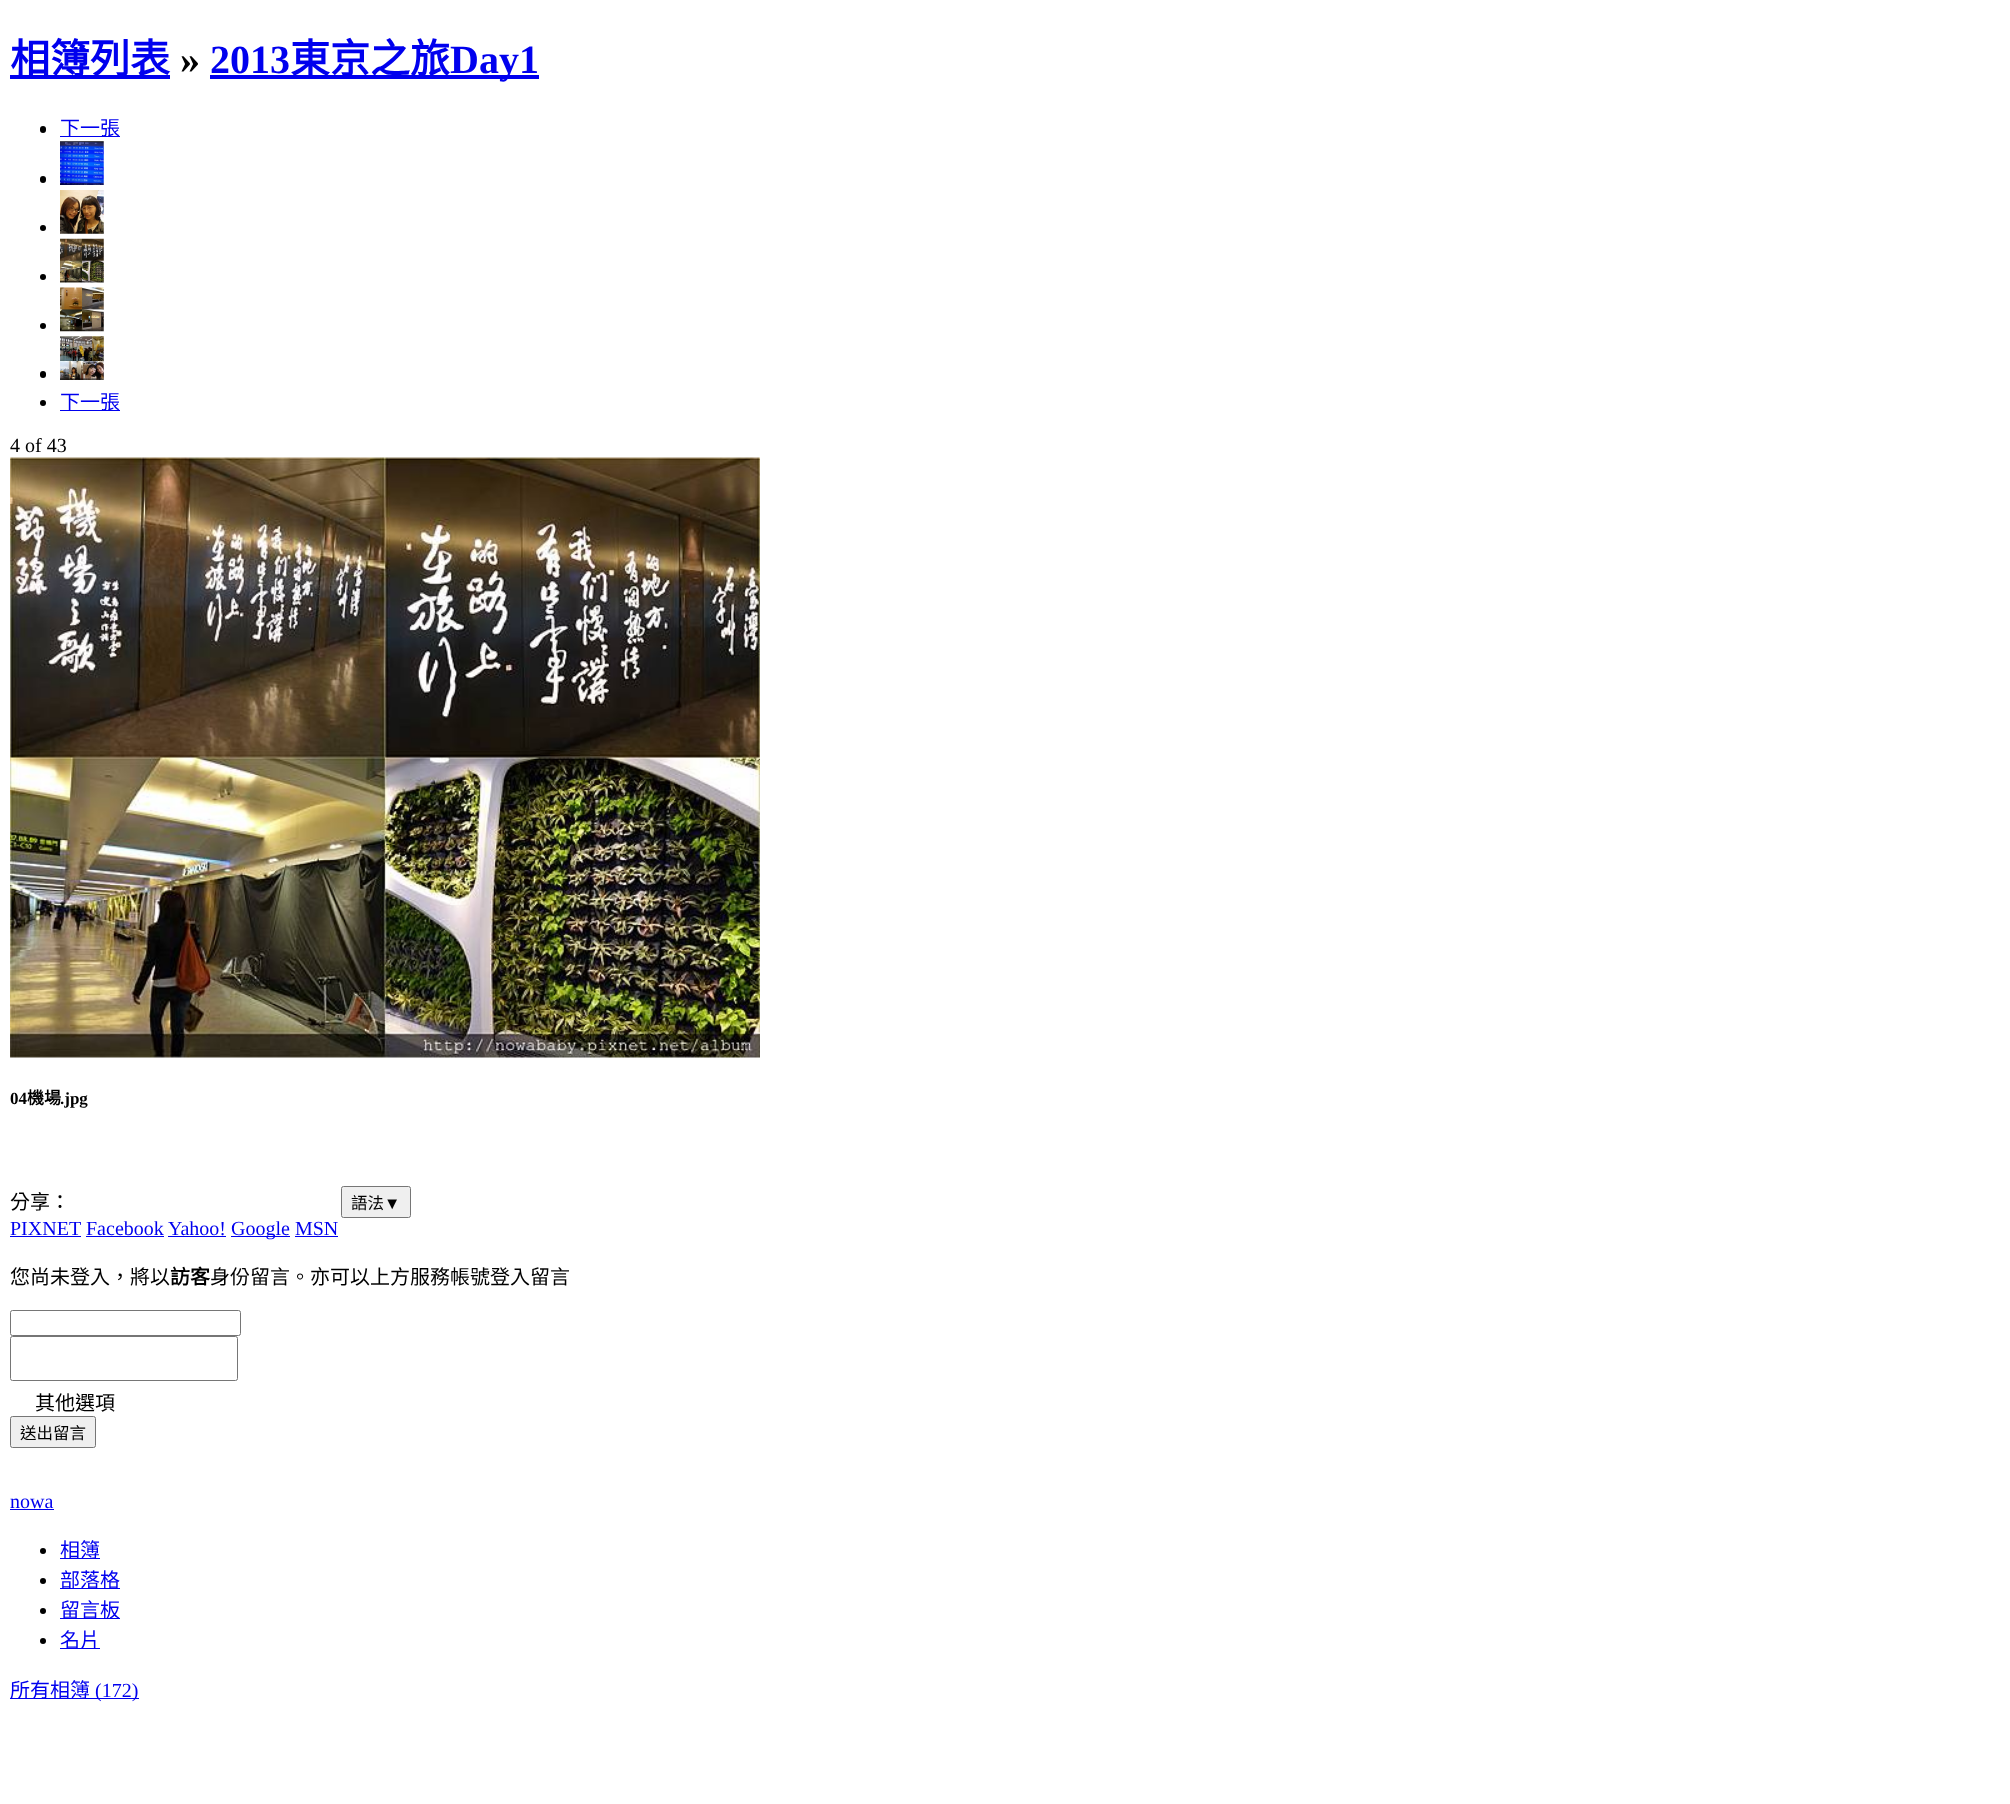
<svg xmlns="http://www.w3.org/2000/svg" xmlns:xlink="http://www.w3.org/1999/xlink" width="2010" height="1804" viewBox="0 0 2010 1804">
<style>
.cls-1{font:bold 40px Noto Sans CJK TC;fill:#0000ee}
.cls-2{font:bold 40px Liberation Serif;fill:#000000}
.cls-3{font:bold 40px Liberation Serif;fill:#0000ee}
.cls-4{font:20px Noto Sans CJK TC;fill:#0000ee}
.cls-5{font:20px Liberation Serif;fill:#000000}
.cls-6{font:bold 17px Liberation Serif;fill:#000000}
.cls-7{font:bold 17px Noto Sans CJK TC;fill:#000000}
.cls-8{font:20px Noto Sans CJK TC;fill:#000000}
.cls-9{font:16.5px Noto Sans CJK TC;fill:#000000}
.cls-10{font:16.5px Liberation Sans;fill:#000000}
.cls-11{font:20px Liberation Serif;fill:#0000ee}
.cls-12{font:bold 20px Noto Sans CJK TC;fill:#000000}
</style>
<rect width="100%" height="100%" fill="#ffffff"/>
<rect fill="#0000ee" x="10" y="75" width="160" height="4"/>
<rect fill="#0000ee" x="210" y="75" width="329" height="4"/>
<rect fill="#000000" x="40" y="126" width="6" height="7" rx="3"/>
<rect fill="#0000ee" x="60" y="136" width="60" height="1"/>
<rect fill="#000000" x="40" y="176" width="6" height="7" rx="3"/>
<image xlink:href="image0.png" x="60" y="141" width="44" height="44"/>
<circle fill="#000000" cx="43" cy="228" r="3"/>
<image xlink:href="image1.png" x="60" y="190" width="44" height="44"/>
<circle fill="#000000" cx="43" cy="277" r="3"/>
<image xlink:href="image2.png" x="60" y="238" width="44" height="45"/>
<circle fill="#000000" cx="43" cy="326" r="3"/>
<image xlink:href="image3.png" x="60" y="287" width="44" height="45"/>
<rect fill="#000000" x="40" y="371" width="6" height="7" rx="3"/>
<image xlink:href="image4.png" x="60" y="336" width="44" height="44"/>
<circle fill="#000000" cx="43" cy="403" r="3"/>
<rect fill="#0000ee" x="60" y="410" width="60" height="1"/>
<image xlink:href="image5.png" x="10" y="457" width="750" height="601"/>
<rect fill="#efefef" stroke="#767676" x="341.5" y="1186.5" width="69" height="31" rx="2"/>
<rect fill="#0000ee" x="10" y="1236" width="71" height="1"/>
<rect fill="#0000ee" x="86" y="1236" width="78" height="1"/>
<rect fill="#0000ee" x="168" y="1236" width="58" height="1"/>
<rect fill="#0000ee" x="231" y="1236" width="59" height="1"/>
<rect fill="#0000ee" x="295" y="1236" width="43" height="1"/>
<rect fill="none" stroke="#767676" x="10.5" y="1310.5" width="230" height="25" rx="2"/>
<rect fill="none" stroke="#767676" x="10.5" y="1336.5" width="227" height="44" rx="2"/>
<rect fill="#efefef" stroke="#767676" x="10.5" y="1416.5" width="85" height="31" rx="2"/>
<rect fill="#0000ee" x="10" y="1509" width="44" height="1"/>
<circle fill="#000000" cx="43" cy="1551" r="3"/>
<rect fill="#0000ee" x="60" y="1558" width="40" height="1"/>
<circle fill="#000000" cx="43" cy="1581" r="3"/>
<rect fill="#0000ee" x="60" y="1588" width="60" height="1"/>
<circle fill="#000000" cx="43" cy="1611" r="3"/>
<rect fill="#0000ee" x="60" y="1618" width="60" height="1"/>
<circle fill="#000000" cx="43" cy="1641" r="3"/>
<rect fill="#0000ee" x="60" y="1648" width="40" height="1"/>
<rect fill="#0000ee" x="10" y="1698" width="129" height="1"/>
<text class="cls-1" x="10" y="73">相簿列表</text>
<text class="cls-2" x="180" y="73">»</text>
<text class="cls-3" x="210" y="73">2013</text>
<text class="cls-1" x="290" y="73">東京之旅</text>
<text class="cls-3" x="450" y="73">Day1</text>
<text class="cls-4" x="60" y="135">下一張</text>
<text class="cls-4" x="60" y="409">下一張</text>
<text class="cls-5" x="10" y="452">4 of 43</text>
<text class="cls-6" x="10" y="1104">04</text>
<text class="cls-7" x="27" y="1104">機場</text>
<text class="cls-6" x="60" y="1104">.jpg</text>
<text class="cls-8" x="10" y="1209">分享：</text>
<text class="cls-9" x="351" y="1209">語法</text>
<text class="cls-10" x="384" y="1209">▼</text>
<text class="cls-11" x="10" y="1235">PIXNET</text>
<text class="cls-11" x="86" y="1235">Facebook</text>
<text class="cls-11" x="168" y="1235">Yahoo!</text>
<text class="cls-11" x="231" y="1235">Google MSN</text>
<text class="cls-8" x="10" y="1284">您尚未登入，將以</text>
<text class="cls-12" x="170" y="1284">訪客</text>
<text class="cls-8" x="210" y="1284">身份留言。亦可以上方服務帳號登入留言</text>
<text class="cls-8" x="35" y="1410">其他選項</text>
<text class="cls-9" x="20" y="1439">送出留言</text>
<text class="cls-11" x="10" y="1508">nowa</text>
<text class="cls-4"><tspan x="60" y="1557">相簿</tspan><tspan x="60" y="1587">部落格</tspan><tspan x="60" y="1617">留言板</tspan><tspan x="60" y="1647">名片</tspan></text>
<text class="cls-4" x="10" y="1697">所有相簿</text>
<text class="cls-11" x="95" y="1697">(172)</text>
</svg>
